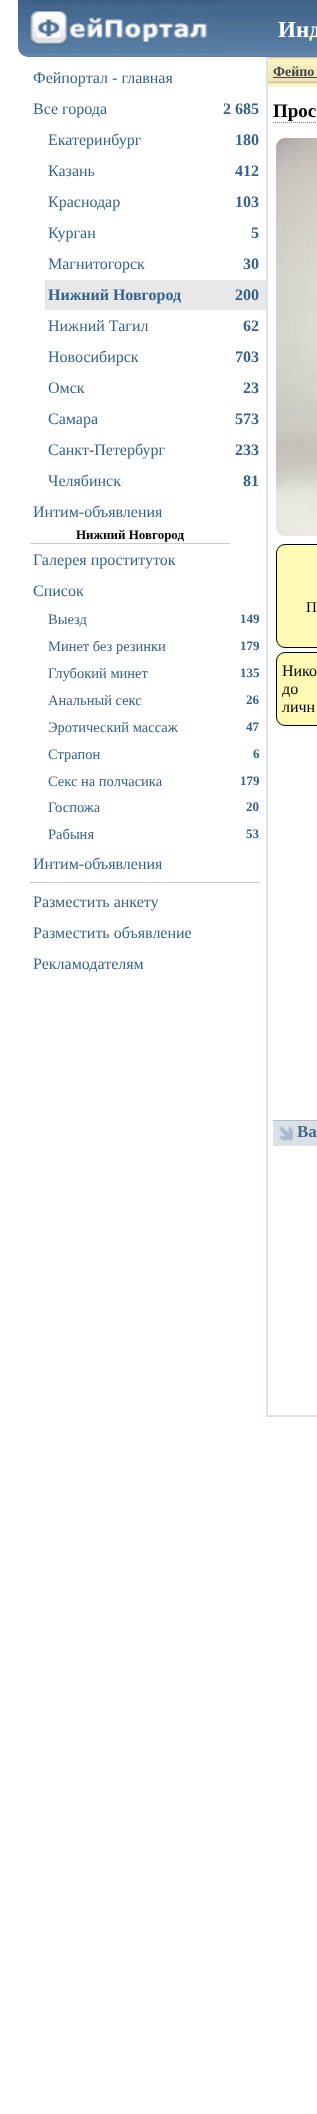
<svg xmlns="http://www.w3.org/2000/svg" xmlns:xlink="http://www.w3.org/1999/xlink" width="317" height="2114" viewBox="0 0 317 2114">
<style>
.cls-1{font:bold 23px Liberation Serif;fill:#ffffff}
.cls-2{font:16px Liberation Serif;fill:#36638e}
.cls-3{font:bold 16px Liberation Serif;fill:#36638e}
.cls-4{font:bold 13px Liberation Serif;fill:#000000}
.cls-5{font:14.5px Liberation Serif;fill:#36638e}
.cls-6{font:bold 13px Liberation Serif;fill:#36638e}
.cls-7{font:bold 14px Liberation Serif;fill:#444444}
.cls-8{font:bold 19px Liberation Serif;fill:#000000}
.cls-9{font:15px Liberation Serif;fill:#000000}
.cls-10{font:16px Liberation Serif;fill:#000000}
.cls-11{font:bold 17px Liberation Serif;fill:#45688e}
</style>
<rect width="100%" height="100%" fill="#ffffff"/>
<image xlink:href="image0.png" x="18" y="0" width="299" height="57"/>
<image xlink:href="image1.png" x="28" y="0" width="193" height="53"/>
<rect fill="#e8e8e8" x="45" y="280" width="221" height="30"/>
<rect fill="#cccccc" x="30" y="543" width="200" height="1"/>
<rect fill="#cccccc" x="30" y="882" width="230" height="1"/>
<rect fill="#dae1e8" x="266" y="1415" width="51" height="2"/>
<rect fill="#dae1e8" x="266" y="57" width="2" height="1360"/>
<image xlink:href="image2.png" x="268" y="57" width="49" height="30"/>
<rect fill="#444444" x="273" y="77" width="44" height="1"/>
<path fill="none" stroke="#808080" stroke-dasharray="1 1" d="M273 122.5H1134"/>
<image xlink:href="image3.png" x="276" y="138" width="41" height="398"/>
<rect fill="#fdfab4" stroke="#000000" x="276.5" y="544.5" width="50" height="103" rx="8.5"/>
<rect fill="#fdfab4" stroke="#000000" x="276.5" y="652.5" width="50" height="73" rx="8.5"/>
<rect fill="#dae2e8" x="273" y="1121" width="44" height="25"/>
<image xlink:href="image4.png" x="278" y="1126" width="15" height="15"/>
<rect fill="#b1bdd6" x="273" y="1120" width="44" height="1"/>
<text class="cls-1" x="278" y="37">Инд</text>
<text class="cls-2"><tspan x="33" y="83">Фейпортал - главная</tspan><tspan x="33" y="114">Все города</tspan></text>
<text class="cls-3" x="223" y="114">2 685</text>
<text class="cls-2" x="48" y="145">Екатеринбург</text>
<text class="cls-3" x="235" y="145">180</text>
<text class="cls-2" x="48" y="176">Казань</text>
<text class="cls-3" x="235" y="176">412</text>
<text class="cls-2" x="48" y="207">Краснодар</text>
<text class="cls-3" x="235" y="207">103</text>
<text class="cls-2" x="48" y="238">Курган</text>
<text class="cls-3" x="251" y="238">5</text>
<text class="cls-2" x="48" y="269">Магнитогорск</text>
<text class="cls-3" x="243" y="269">30</text>
<text class="cls-3" x="48" y="300">Нижний Новгород</text>
<text class="cls-3" x="235" y="300">200</text>
<text class="cls-2" x="48" y="331">Нижний Тагил</text>
<text class="cls-3" x="243" y="331">62</text>
<text class="cls-2" x="48" y="362">Новосибирск</text>
<text class="cls-3" x="235" y="362">703</text>
<text class="cls-2" x="48" y="393">Омск</text>
<text class="cls-3" x="243" y="393">23</text>
<text class="cls-2" x="48" y="424">Самара</text>
<text class="cls-3" x="235" y="424">573</text>
<text class="cls-2" x="48" y="455">Санкт-Петербург</text>
<text class="cls-3" x="235" y="455">233</text>
<text class="cls-2" x="48" y="486">Челябинск</text>
<text class="cls-3" x="243" y="486">81</text>
<text class="cls-2" x="33" y="517">Интим-объявления</text>
<text class="cls-4" x="76" y="539">Нижний Новгород</text>
<text class="cls-2"><tspan x="33" y="565">Галерея проституток</tspan><tspan x="33" y="596">Список</tspan></text>
<text class="cls-5" x="48" y="624">Выезд</text>
<text class="cls-6" x="240" y="623">149</text>
<text class="cls-5" x="48" y="651">Минет без резинки</text>
<text class="cls-6" x="240" y="650">179</text>
<text class="cls-5" x="48" y="678">Глубокий минет</text>
<text class="cls-6" x="240" y="677">135</text>
<text class="cls-5" x="48" y="705">Анальный секс</text>
<text class="cls-6" x="246" y="704">26</text>
<text class="cls-5" x="48" y="732">Эротический массаж</text>
<text class="cls-6" x="246" y="731">47</text>
<text class="cls-5" x="48" y="759">Страпон</text>
<text class="cls-6" x="253" y="758">6</text>
<text class="cls-5" x="48" y="786">Секс на полчасика</text>
<text class="cls-6" x="240" y="785">179</text>
<text class="cls-5" x="48" y="812">Госпожа</text>
<text class="cls-6" x="246" y="811">20</text>
<text class="cls-5" x="48" y="839">Рабыня</text>
<text class="cls-6" x="246" y="838">53</text>
<text class="cls-2" x="33" y="869">Интим-объявления</text>
<text class="cls-2"><tspan x="33" y="907">Разместить анкету</tspan><tspan x="33" y="938">Разместить объявление</tspan><tspan x="33" y="969">Рекламодателям</tspan></text>
<text class="cls-7" x="273" y="76">Фейпо</text>
<text class="cls-8" x="273" y="117">Прос</text>
<text class="cls-9" x="306" y="612">П</text>
<text class="cls-10"><tspan x="282" y="676" word-spacing="4">Нико</tspan><tspan x="282" y="694" word-spacing="12">до</tspan><tspan x="282" y="712">личн</tspan></text>
<text class="cls-11" x="297" y="1137">Ва</text>
</svg>
